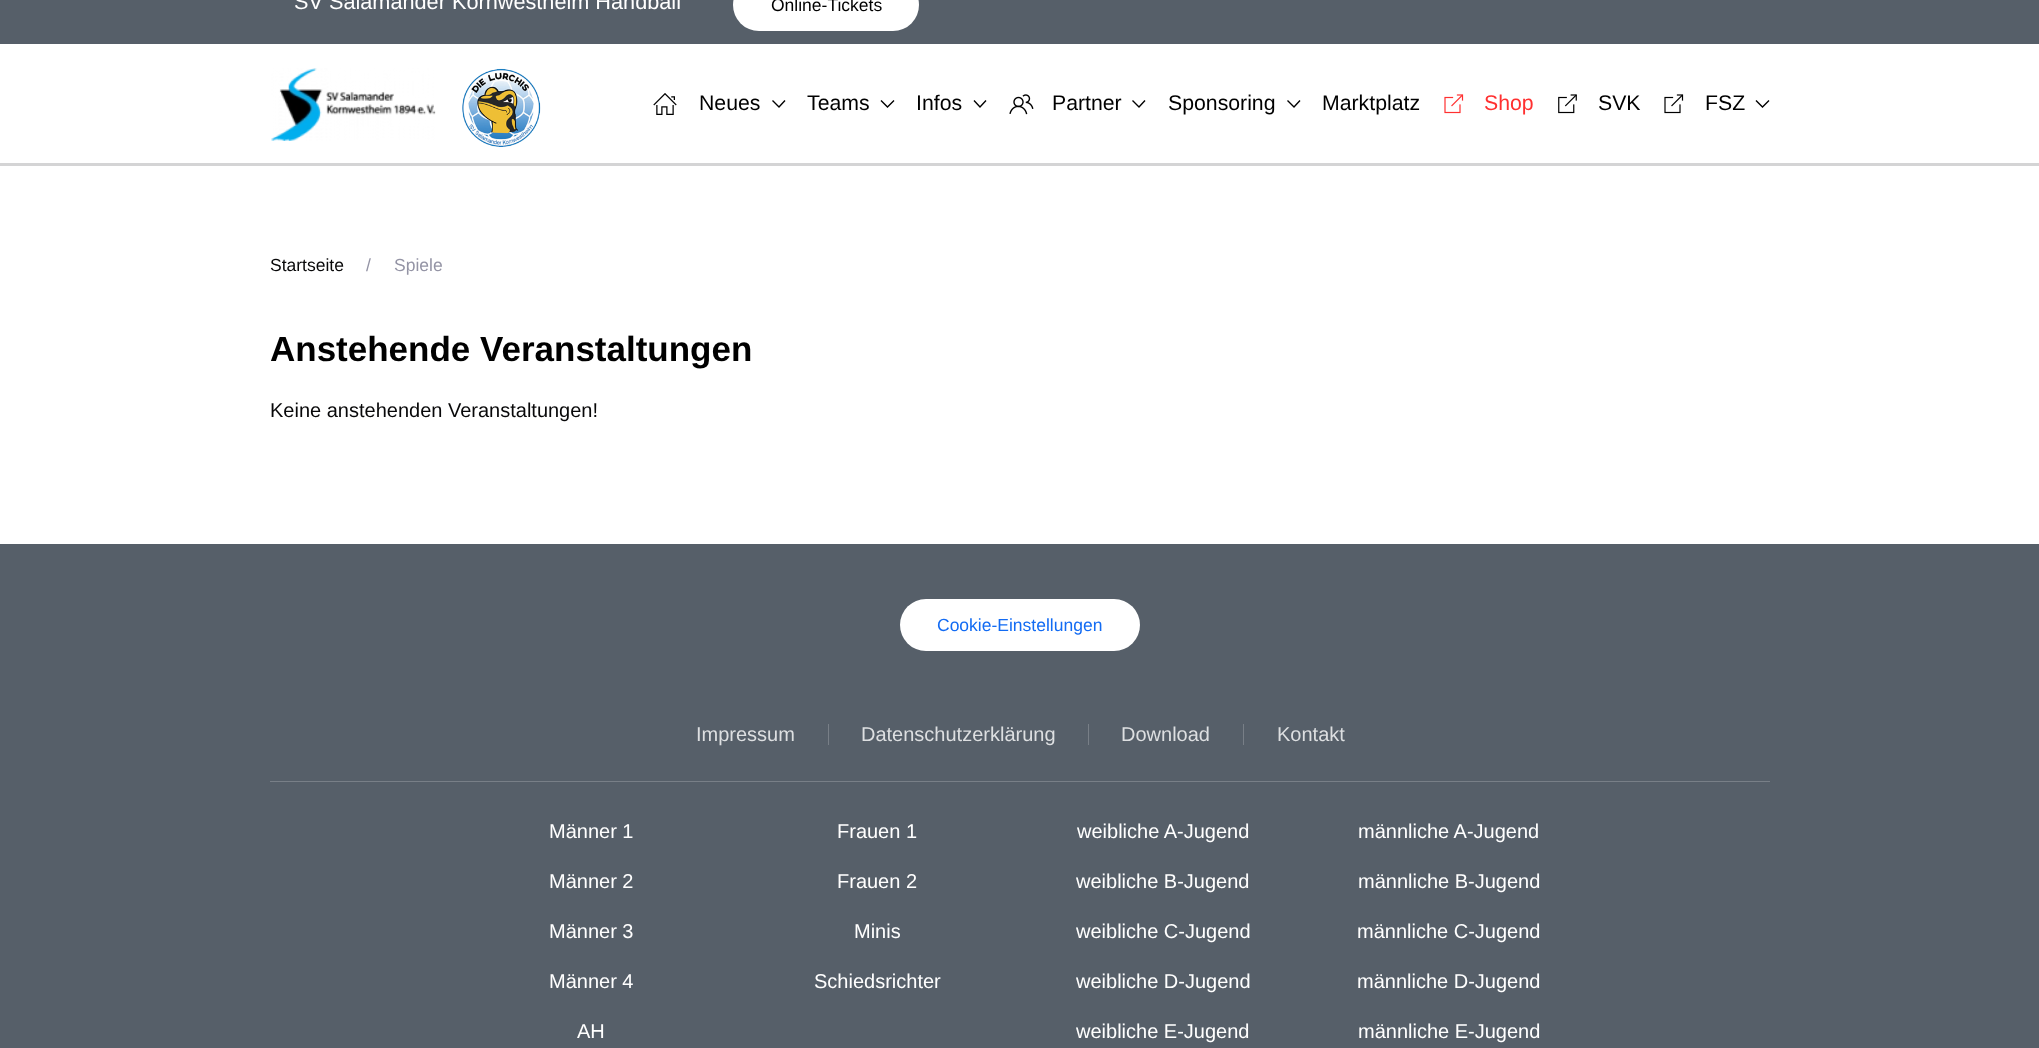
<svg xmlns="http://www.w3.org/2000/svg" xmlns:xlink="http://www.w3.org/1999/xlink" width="2039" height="1048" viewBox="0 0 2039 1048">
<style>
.cls-1{font:21.7px Liberation Sans;fill:#ffffff}
.cls-2{font:17.5px Liberation Sans;fill:#000000}
.cls-3{font:21.25px Liberation Sans;fill:#000000}
.cls-4{font:21.25px Liberation Sans;fill:#ff3030}
.cls-5{font:17.5px Liberation Sans;fill:#080809}
.cls-6{font:17.5px Liberation Sans;fill:#9494a5}
.cls-7{font:bold 35px Liberation Sans;fill:#000000}
.cls-8{font:20px Liberation Sans;fill:#080809}
.cls-9{font:17.5px Liberation Sans;fill:#126bf3}
.cls-10{font:20px Liberation Sans;fill:#dddfe1}
.cls-11{font:20px Liberation Sans;fill:#ffffff}
</style>
<rect width="100%" height="100%" fill="#ffffff"/>
<rect fill="#565f69" x="0" y="0" width="2039" height="44"/>
<rect fill="#ffffff" x="733" y="-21" width="186" height="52" rx="26"/>
<rect fill="#d4d4d5" x="0" y="163" width="2039" height="3"/>
<image xlink:href="image0.png" x="271" y="68" width="165" height="73"/>
<image xlink:href="image1.png" x="462" y="68" width="79" height="79"/>
<image xlink:href="image2.png" x="653" y="93" width="24" height="22"/>
<path fill="none" stroke="#000000" stroke-width="1.4" d="M772.5 100.5L779 107L785 100.5"/>
<path fill="none" stroke="#000000" stroke-width="1.4" d="M881 100.5L887.5 107L894 100.5"/>
<path fill="none" stroke="#000000" stroke-width="1.4" d="M974 100.5L980 107L986 100.5"/>
<image xlink:href="image3.png" x="1009" y="94" width="25" height="21"/>
<path fill="none" stroke="#000000" stroke-width="1.4" d="M1132.5 100.5L1139 107L1145 100.5"/>
<path fill="none" stroke="#000000" stroke-width="1.4" d="M1287.5 100.5L1294 107L1300 100.5"/>
<image xlink:href="image4.png" x="1444" y="94" width="20" height="20"/>
<image xlink:href="image5.png" x="1558" y="94" width="19" height="20"/>
<image xlink:href="image6.png" x="1664" y="94" width="20" height="20"/>
<path fill="none" stroke="#000000" stroke-width="1.4" d="M1756 100.5L1762.5 107L1769 100.5"/>
<rect fill="#565f69" x="0" y="544" width="2039" height="504"/>
<rect fill="#ffffff" x="900" y="599" width="240" height="52" rx="26"/>
<rect fill="#787f87" x="828" y="724" width="1" height="21"/>
<rect fill="#787f87" x="1088" y="724" width="1" height="21"/>
<rect fill="#787f87" x="1243" y="724" width="1" height="21"/>
<rect fill="#787f87" x="270" y="781" width="1500" height="1"/>
<text class="cls-1" x="294" y="9">SV Salamander Kornwestheim Handball</text>
<text class="cls-2" x="771" y="11">Online-Tickets</text>
<text class="cls-3" x="699" y="110">Neues</text>
<text class="cls-3" x="807" y="110">Teams</text>
<text class="cls-3" x="916" y="110">Infos</text>
<text class="cls-3" x="1052" y="110">Partner</text>
<text class="cls-3" x="1168" y="110">Sponsoring</text>
<text class="cls-3" x="1322" y="110">Marktplatz</text>
<text class="cls-4" x="1484" y="110">Shop</text>
<text class="cls-3" x="1598" y="110">SVK</text>
<text class="cls-3" x="1705" y="110">FSZ</text>
<text class="cls-5" x="270" y="271">Startseite</text>
<text class="cls-6" x="366" y="271">/</text>
<text class="cls-6" x="394" y="271">Spiele</text>
<text class="cls-7" x="270" y="361">Anstehende Veranstaltungen</text>
<text class="cls-8" x="270" y="417">Keine anstehenden Veranstaltungen!</text>
<text class="cls-9" x="937" y="631">Cookie-Einstellungen</text>
<text class="cls-10" x="696" y="741">Impressum</text>
<text class="cls-10" x="861" y="741">Datenschutzerklärung</text>
<text class="cls-10" x="1121" y="741">Download</text>
<text class="cls-10" x="1277" y="741">Kontakt</text>
<text class="cls-11" x="549" y="838">Männer 1</text>
<text class="cls-11" x="549" y="888">Männer 2</text>
<text class="cls-11" x="549" y="938">Männer 3</text>
<text class="cls-11" x="549" y="988">Männer 4</text>
<text class="cls-11" x="577" y="1038">AH</text>
<text class="cls-11" x="837" y="838">Frauen 1</text>
<text class="cls-11" x="837" y="888">Frauen 2</text>
<text class="cls-11" x="854" y="938">Minis</text>
<text class="cls-11" x="814" y="988">Schiedsrichter</text>
<text class="cls-11" x="1077" y="838">weibliche A-Jugend</text>
<text class="cls-11" x="1076" y="888">weibliche B-Jugend</text>
<text class="cls-11" x="1076" y="938">weibliche C-Jugend</text>
<text class="cls-11" x="1076" y="988">weibliche D-Jugend</text>
<text class="cls-11" x="1076" y="1038">weibliche E-Jugend</text>
<text class="cls-11" x="1358" y="838">männliche A-Jugend</text>
<text class="cls-11" x="1358" y="888">männliche B-Jugend</text>
<text class="cls-11" x="1357" y="938">männliche C-Jugend</text>
<text class="cls-11" x="1357" y="988">männliche D-Jugend</text>
<text class="cls-11" x="1358" y="1038">männliche E-Jugend</text>
</svg>
